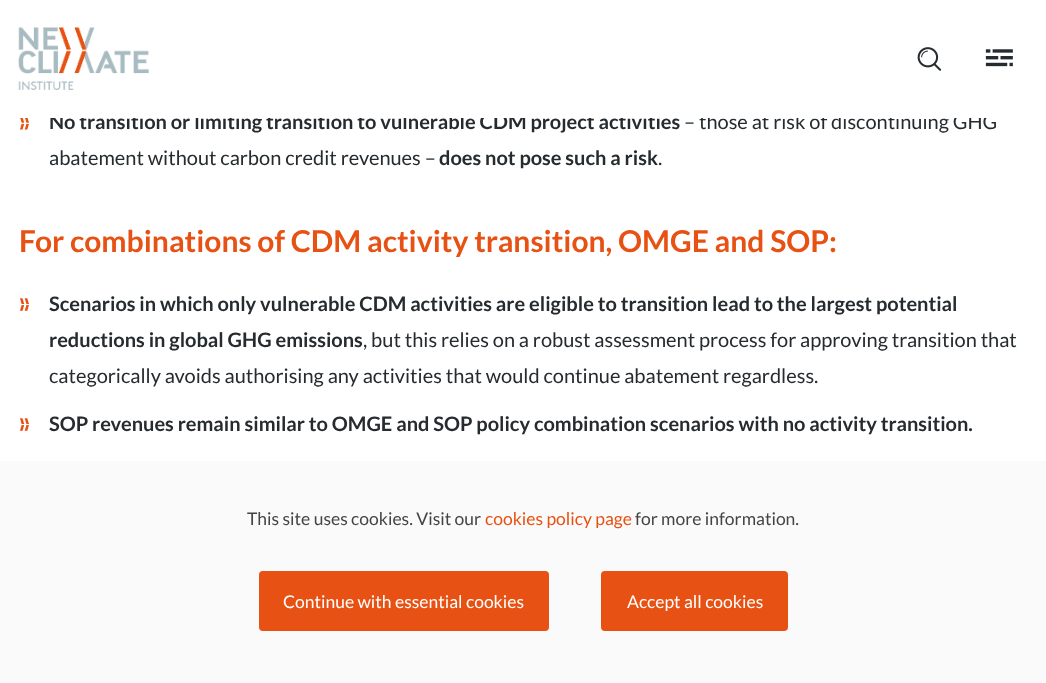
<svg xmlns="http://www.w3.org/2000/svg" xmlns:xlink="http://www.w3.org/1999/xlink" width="1046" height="683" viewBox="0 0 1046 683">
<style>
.cls-1{font:bold 20px Lato;fill:#252b2e}
.cls-2{font:20px Lato;fill:#252b2e}
.cls-3{font:bold 30px Lato;fill:#e75113}
.cls-4{font:17.5px Lato;fill:#444444}
.cls-5{font:17.5px Lato;fill:#e75113}
.cls-6{font:17.5px Lato;fill:#ffffff}
</style>
<rect width="100%" height="100%" fill="#ffffff"/>
<image xlink:href="image0.png" x="18" y="27" width="131" height="63"/>
<image xlink:href="image1.png" x="917" y="47" width="25" height="24"/>
<image xlink:href="image2.png" x="985" y="49" width="28" height="18"/>
<image xlink:href="image3.png" x="20" y="118" width="9" height="12"/>
<image xlink:href="image4.png" x="20" y="298" width="9" height="13"/>
<image xlink:href="image4.png" x="20" y="418" width="9" height="13"/>
<rect fill="#fafafa" x="0" y="461" width="1046" height="222"/>
<rect fill="#e75113" stroke="#e75113" stroke-width="4" x="261" y="573" width="286" height="56" rx="2"/>
<rect fill="#e75113" stroke="#e75113" stroke-width="4" x="603" y="573" width="183" height="56" rx="2"/>
<text class="cls-1" x="49" y="129">No transition or limiting transition to vulnerable CDM project activities</text>
<text class="cls-2" x="684" y="129">– those at risk of discontinuing GHG</text>
<rect fill="#ffffff" x="50" y="114" width="946" height="4"/>
<text class="cls-2" x="49" y="165">abatement without carbon credit revenues –</text>
<text class="cls-1" x="439" y="165">does not pose such a risk</text>
<text class="cls-2" x="658" y="165">.</text>
<text class="cls-3" x="19" y="252">For combinations of CDM activity transition, OMGE and SOP:</text>
<text class="cls-1"><tspan x="49" y="311">Scenarios in which only vulnerable CDM activities are eligible to transition lead to the largest potential</tspan><tspan x="49" y="347">reductions in global GHG emissions</tspan></text>
<text class="cls-2" x="363" y="347">, but this relies on a robust assessment process for approving transition that</text>
<text class="cls-2" x="49" y="383">categorically avoids authorising any activities that would continue abatement regardless.</text>
<text class="cls-1" x="49" y="431">SOP revenues remain similar to OMGE and SOP policy combination scenarios with no activity transition.</text>
<text class="cls-4" x="247" y="525">This site uses cookies. Visit our</text>
<text class="cls-5" x="485" y="525">cookies policy page</text>
<text class="cls-4" x="635" y="525">for more information.</text>
<text class="cls-6" x="283" y="608">Continue with essential cookies</text>
<text class="cls-6" x="627" y="608">Accept all cookies</text>
</svg>
